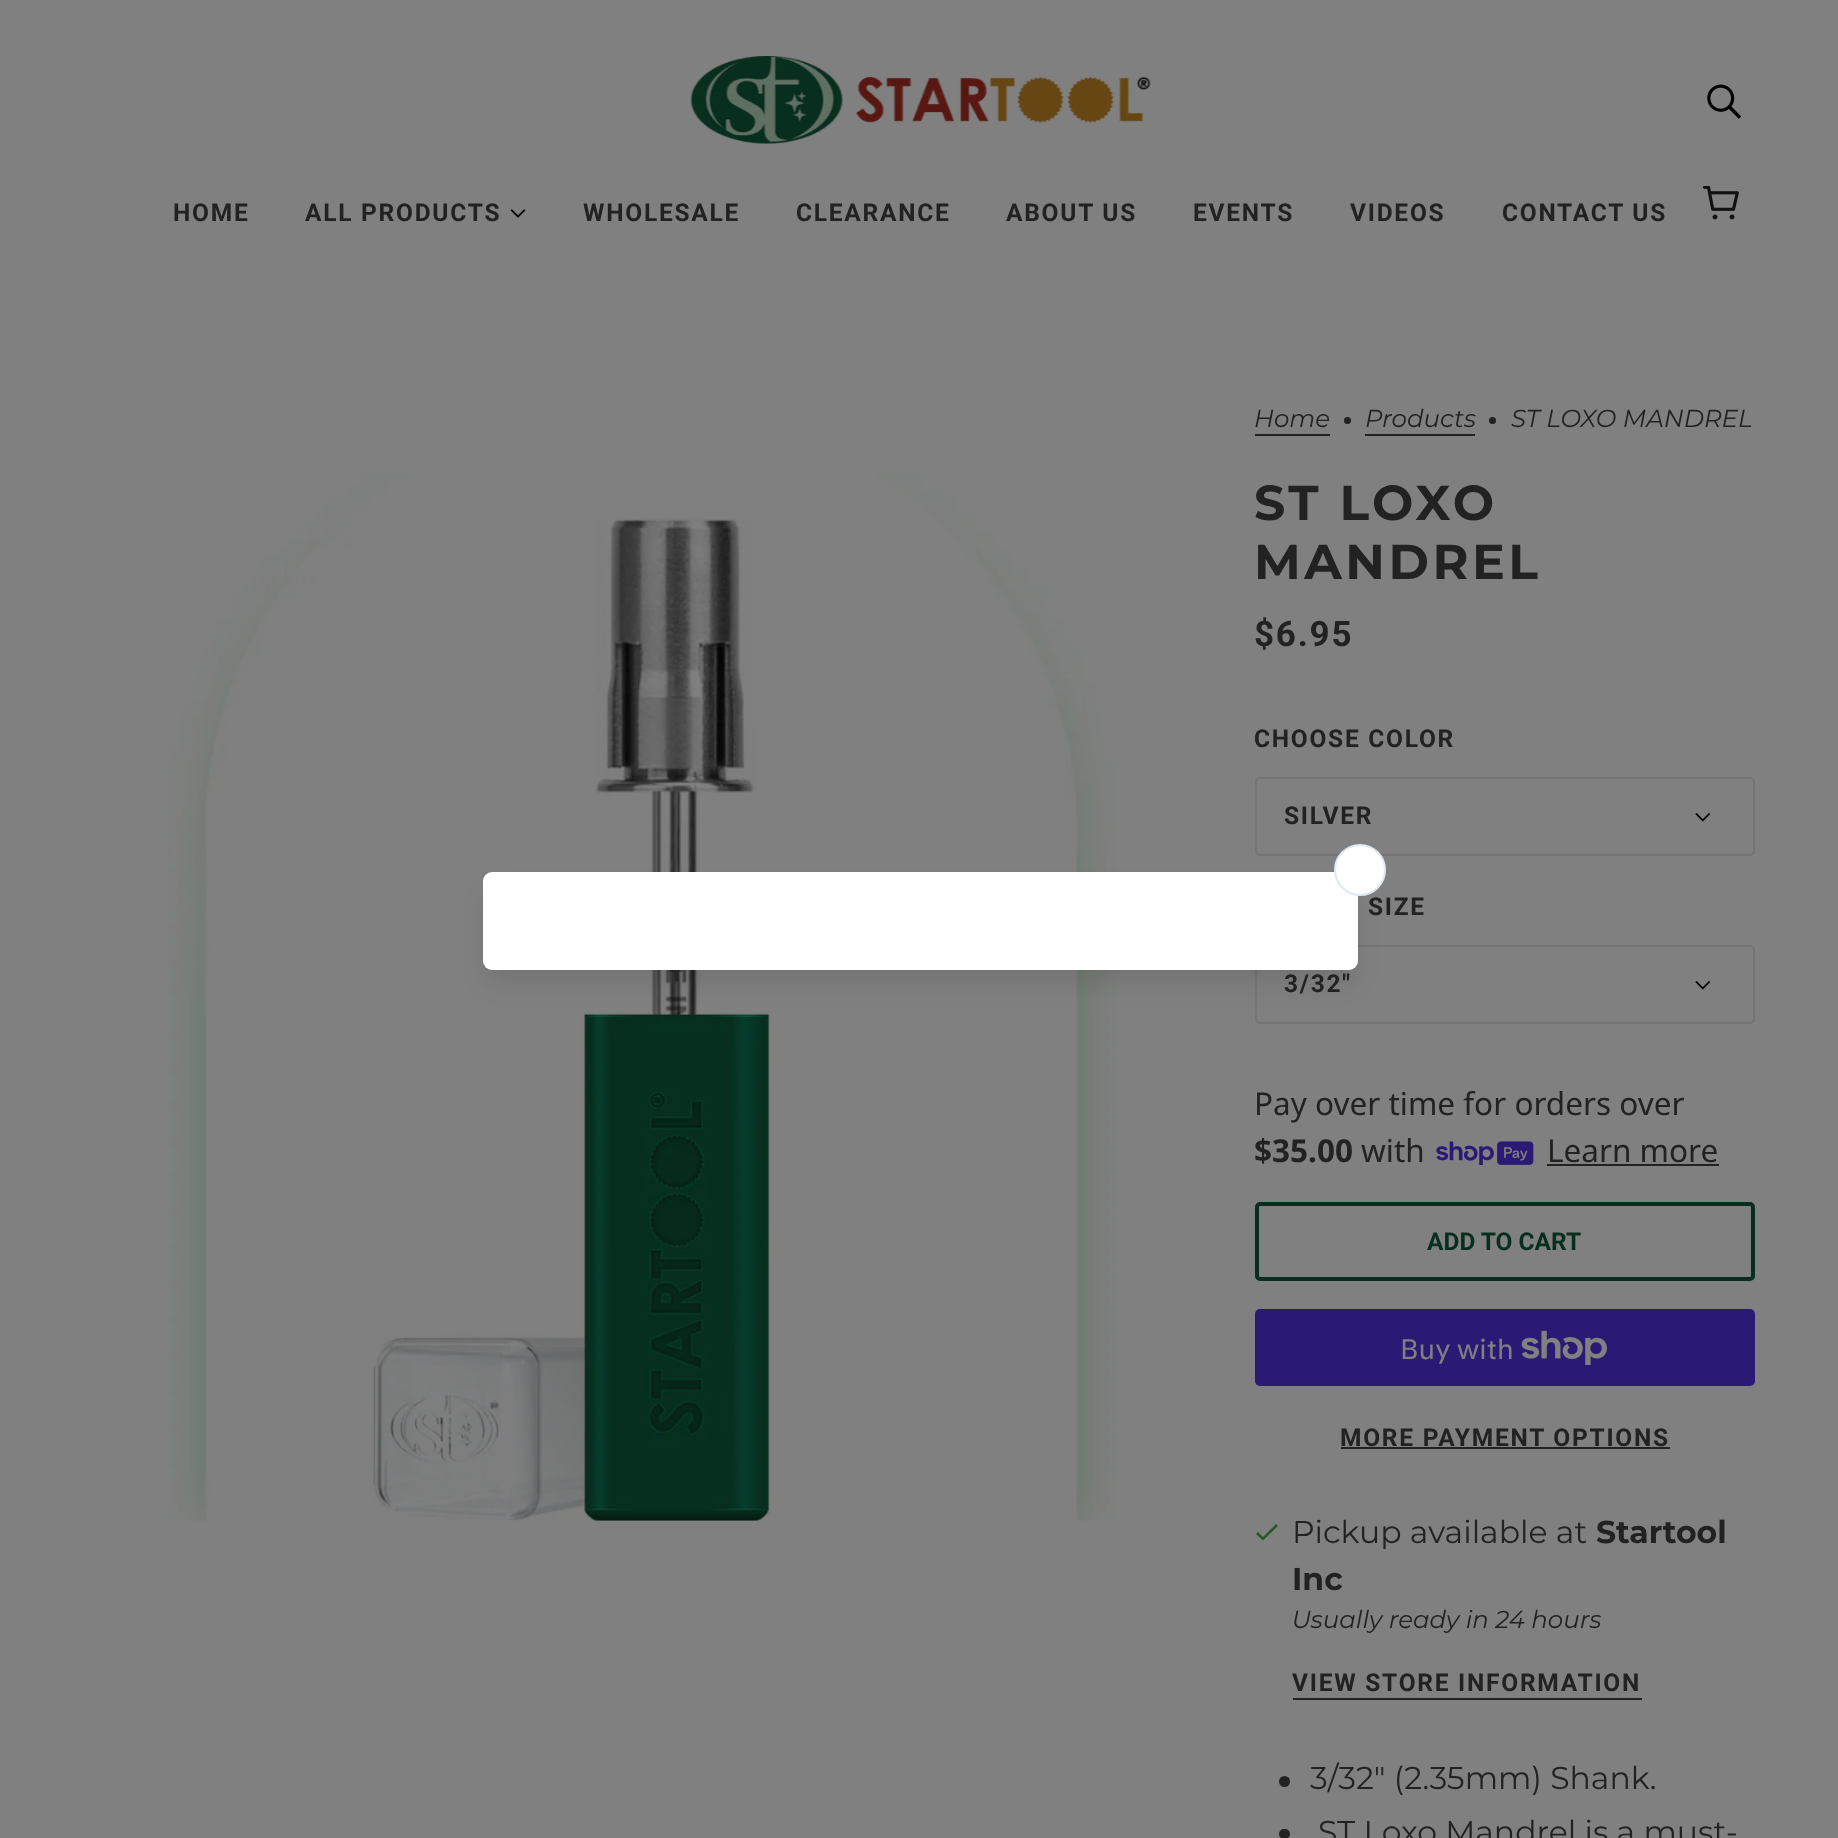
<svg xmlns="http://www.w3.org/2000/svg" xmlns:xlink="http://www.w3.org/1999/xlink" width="1838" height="1838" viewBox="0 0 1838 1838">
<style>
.cls-1{font:bold 24.5px Roboto;letter-spacing:1.75px;fill:#222222}
.cls-2{font:italic 24.5px Montserrat;fill:#222222}
.cls-3{font:bold 49px Montserrat;letter-spacing:3.5px;fill:#222222}
.cls-4{font:bold 35px Roboto;letter-spacing:1.75px;fill:#222222}
.cls-5{font:31.5px Noto Sans;fill:#222222}
.cls-6{font:bold 31.5px Noto Sans;fill:#222222}
.cls-7{font:bold 24.5px Roboto;fill:#072f1f}
.cls-8{font:28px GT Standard;fill:#808080}
.cls-9{font:31.5px Montserrat;fill:#222222}
.cls-10{font:bold 31.5px Montserrat;fill:#222222}
</style>
<defs>
<clipPath id="clip1"><rect x="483" y="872" width="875" height="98"/></clipPath>
</defs>
<rect width="100%" height="100%" fill="#808080"/>
<image xlink:href="image0.png" x="690" y="56" width="461" height="88"/>
<image xlink:href="image1.png" x="1707" y="84" width="34" height="35"/>
<image xlink:href="image2.png" x="510" y="209" width="16" height="9"/>
<image xlink:href="image3.png" x="1703" y="186" width="36" height="34"/>
<image xlink:href="image4.png" x="167" y="471" width="948" height="1050"/>
<rect fill="#222222" x="1255" y="434" width="75" height="2"/>
<circle fill="#222222" cx="1347.5" cy="420.5" r="3.5"/>
<rect fill="#222222" x="1365" y="434" width="110" height="2"/>
<circle fill="#222222" cx="1492.5" cy="420.5" r="3.5"/>
<rect fill="none" stroke="#757575" stroke-width="2" x="1256" y="778" width="498" height="77" rx="4"/>
<image xlink:href="image5.png" x="1695" y="813" width="16" height="9"/>
<rect fill="none" stroke="#757575" stroke-width="2" x="1256" y="946" width="498" height="77" rx="4"/>
<image xlink:href="image5.png" x="1695" y="981" width="16" height="9"/>
<image xlink:href="image6.png" x="1436" y="1141" width="98" height="24"/>
<rect fill="#222222" x="1547" y="1164" width="172" height="2"/>
<rect fill="none" stroke="#072f1f" stroke-width="4" x="1257" y="1204" width="496" height="75" rx="3"/>
<rect fill="#2a1a76" x="1255" y="1309" width="500" height="77" rx="5"/>
<image xlink:href="image7.png" x="1521" y="1330" width="86" height="35"/>
<rect fill="#222222" x="1341" y="1447" width="329" height="2"/>
<path fill="#265828" d="M1263 1537L1258 1532L1256 1534L1263 1540.5L1278 1526L1276 1524Z"/>
<rect fill="#222222" x="1293" y="1698" width="349" height="2"/>
<circle fill="#222222" cx="1284.5" cy="1781.5" r="5.5"/>
<rect fill="#222222" x="1279" y="1829" width="11" height="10" rx="5"/>
<rect fill="#000000" fill-opacity="0.1" filter="blur(13px)" x="488" y="894" width="865" height="88" rx="4"/>
<g clip-path="url(#clip1)">
<rect fill="#000000" fill-opacity="0.12" filter="blur(17.5px)" x="488" y="877" width="865" height="87" rx="4"/>
</g>
<rect fill="#ffffff" x="483" y="872" width="875" height="98" rx="9"/>
<circle fill="#ffffff" stroke="#e2e8f0" stroke-width="2" cx="1360" cy="870" r="25"/>
<text class="cls-1" x="173" y="221">HOME</text>
<text class="cls-1" x="305" y="221">ALL PRODUCTS</text>
<text class="cls-1" x="583" y="221">WHOLESALE</text>
<text class="cls-1" x="796" y="221">CLEARANCE</text>
<text class="cls-1" x="1006" y="221">ABOUT US</text>
<text class="cls-1" x="1193" y="221">EVENTS</text>
<text class="cls-1" x="1350" y="221">VIDEOS</text>
<text class="cls-1" x="1502" y="221">CONTACT US</text>
<text class="cls-2" x="1254" y="427">Home</text>
<text class="cls-2" x="1365" y="427">Products</text>
<text class="cls-2" x="1511" y="427">ST LOXO MANDREL</text>
<text class="cls-3"><tspan x="1254" y="520">ST LOXO</tspan><tspan x="1254" y="579">MANDREL</tspan></text>
<text class="cls-4" x="1254" y="646">$6.95</text>
<text class="cls-1" x="1254" y="747">CHOOSE COLOR</text>
<text class="cls-1" x="1284" y="824">SILVER</text>
<text class="cls-1" x="1368" y="915">SIZE</text>
<text class="cls-1" x="1284" y="992">3/32"</text>
<text class="cls-5" x="1254" y="1115">Pay over time for orders over</text>
<text class="cls-6" x="1254" y="1162">$35.00</text>
<text class="cls-5" x="1361" y="1162">with</text>
<text class="cls-5" x="1547" y="1162">Learn more</text>
<text class="cls-7" x="1427" y="1250">ADD TO CART</text>
<text class="cls-8" x="1400" y="1359">Buy with</text>
<text class="cls-1" x="1340" y="1446">MORE PAYMENT OPTIONS</text>
<text class="cls-9" x="1292" y="1543">Pickup available at</text>
<text class="cls-10" x="1596" y="1543">Startool</text>
<text class="cls-10" x="1292" y="1590">Inc</text>
<text class="cls-2" x="1292" y="1628">Usually ready in 24 hours</text>
<text class="cls-1" x="1292" y="1691">VIEW STORE INFORMATION</text>
<text class="cls-9" x="1310" y="1789">3/32" (2.35mm) Shank.</text>
<text class="cls-9" x="1318" y="1843">ST Loxo Mandrel is a must-</text>
</svg>
